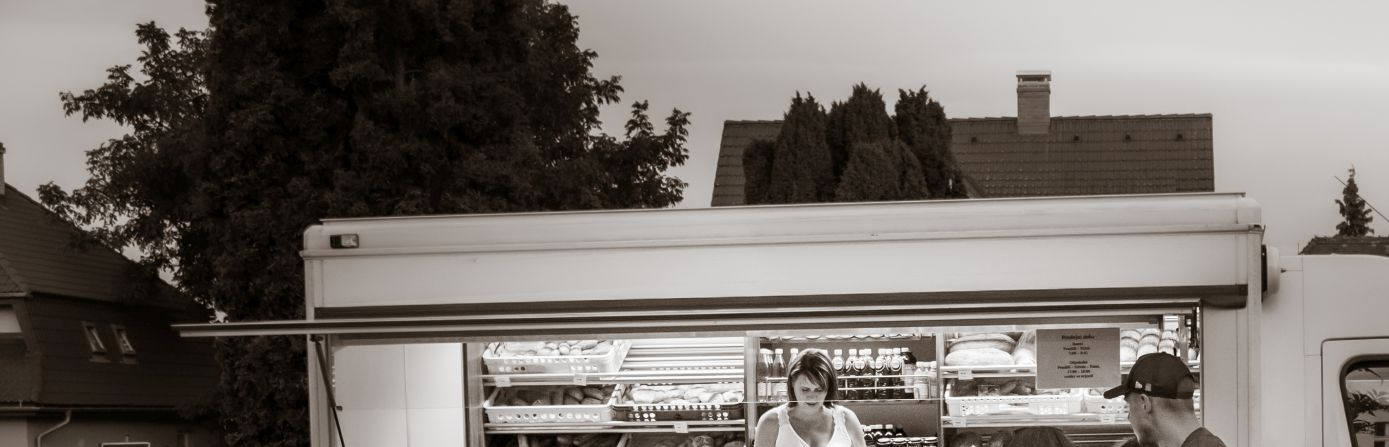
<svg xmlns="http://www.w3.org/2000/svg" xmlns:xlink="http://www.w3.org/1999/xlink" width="1389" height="447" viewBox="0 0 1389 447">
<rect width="100%" height="100%" fill="#ffffff"/>
<image xlink:href="image0.png" x="0" y="0" width="1389" height="447"/>
</svg>
